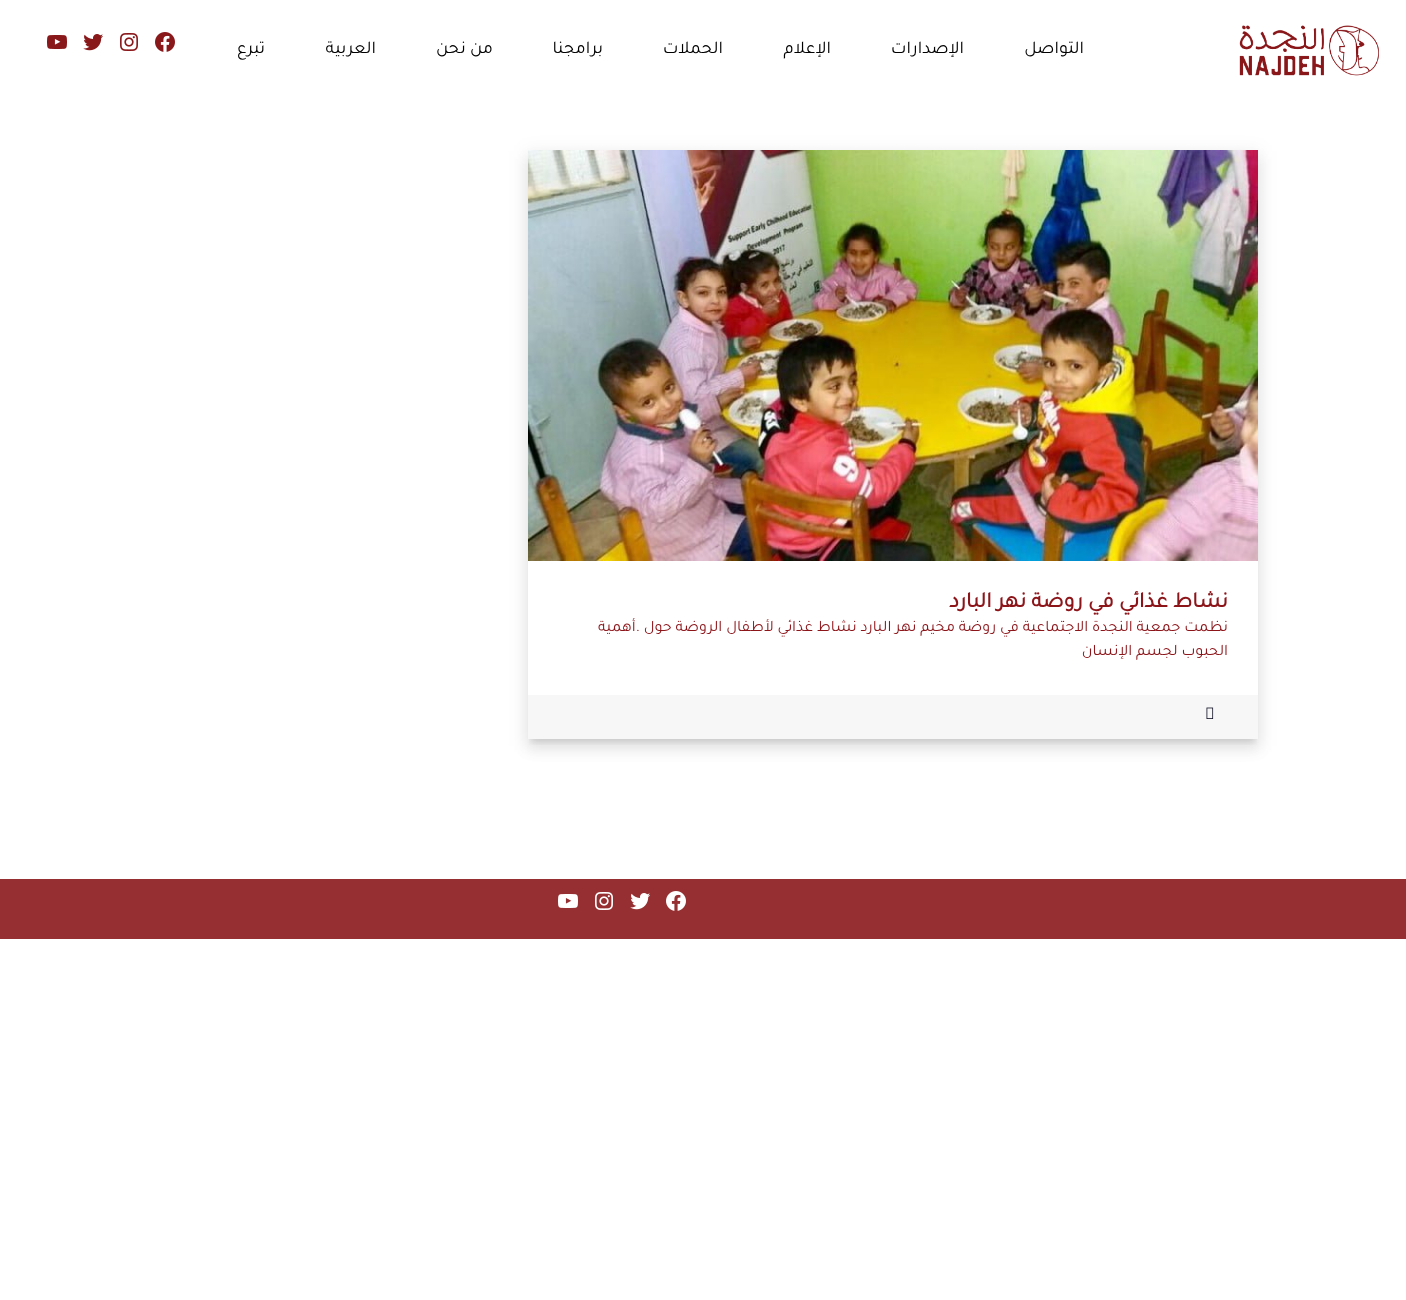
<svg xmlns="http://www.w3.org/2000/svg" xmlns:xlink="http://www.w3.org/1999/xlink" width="1406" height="1300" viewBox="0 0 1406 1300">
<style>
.cls-1{font:18px Tajawal;direction:rtl;fill:#000000}
.cls-2{font:bold 22px Tajawal;direction:rtl;fill:#8c151a}
.cls-3{font:16px Tajawal;direction:rtl;fill:#8c151a}
</style>
<defs>
<clipPath id="clip1"><path d="M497 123H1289V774H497ZM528 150H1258V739H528Z" clip-rule="evenodd"/></clipPath>
<clipPath id="clip2"><path d="M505 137H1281V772H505ZM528 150H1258V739H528Z" clip-rule="evenodd"/></clipPath>
<clipPath id="clip3"><rect x="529" y="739" width="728" height="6"/></clipPath>
</defs>
<rect width="100%" height="100%" fill="#ffffff"/>
<image xlink:href="image0.png" x="1239" y="25" width="140" height="51"/>
<image xlink:href="image1.png" x="155" y="32" width="20" height="20"/>
<image xlink:href="image2.png" x="120" y="33" width="18" height="18"/>
<image xlink:href="image3.png" x="83" y="34" width="20" height="17"/>
<image xlink:href="image4.png" x="47" y="35" width="20" height="14"/>
<g clip-path="url(#clip1)">
<rect fill="#000000" fill-opacity="0.06" filter="blur(9px)" x="525" y="151" width="736" height="595"/>
</g>
<g clip-path="url(#clip2)">
<rect fill="#000000" fill-opacity="0.07" filter="blur(7px)" x="527" y="159" width="732" height="591"/>
</g>
<g clip-path="url(#clip3)">
<rect fill="#000000" fill-opacity="0.1" filter="blur(3px)" x="531" y="159" width="724" height="583"/>
</g>
<image xlink:href="image5.png" x="528" y="150" width="730" height="411"/>
<rect fill="#f7f7f7" x="528" y="695" width="730" height="44"/>
<image xlink:href="image6.png" x="1206" y="707" width="8" height="12"/>
<rect fill="#952f31" x="0" y="879" width="1406" height="60"/>
<image xlink:href="image7.png" x="666" y="891" width="20" height="20"/>
<image xlink:href="image8.png" x="630" y="893" width="20" height="17"/>
<image xlink:href="image9.png" x="595" y="892" width="18" height="18"/>
<image xlink:href="image10.png" x="558" y="894" width="20" height="14"/>
<text class="cls-1" x="1084" y="53">التواصل</text>
<text class="cls-1" x="964" y="53">الإصدارات</text>
<text class="cls-1" x="831" y="53">الإعلام</text>
<text class="cls-1" x="723" y="53">الحملات</text>
<text class="cls-1" x="603" y="53">برامجنا</text>
<text class="cls-1" x="493" y="53">من نحن</text>
<text class="cls-1" x="376" y="53">العربية</text>
<text class="cls-1" x="265" y="53">تبرع</text>
<text class="cls-2" x="1228" y="607">نشاط غذائي في روضة نهر البارد</text>
<text class="cls-3"><tspan x="1228" y="631">نظمت جمعية النجدة الاجتماعية في روضة مخيم نهر البارد نشاط غذائي لأطفال الروضة حول .أهمية</tspan><tspan x="1228" y="655">الحبوب لجسم الإنسان</tspan></text>
</svg>
